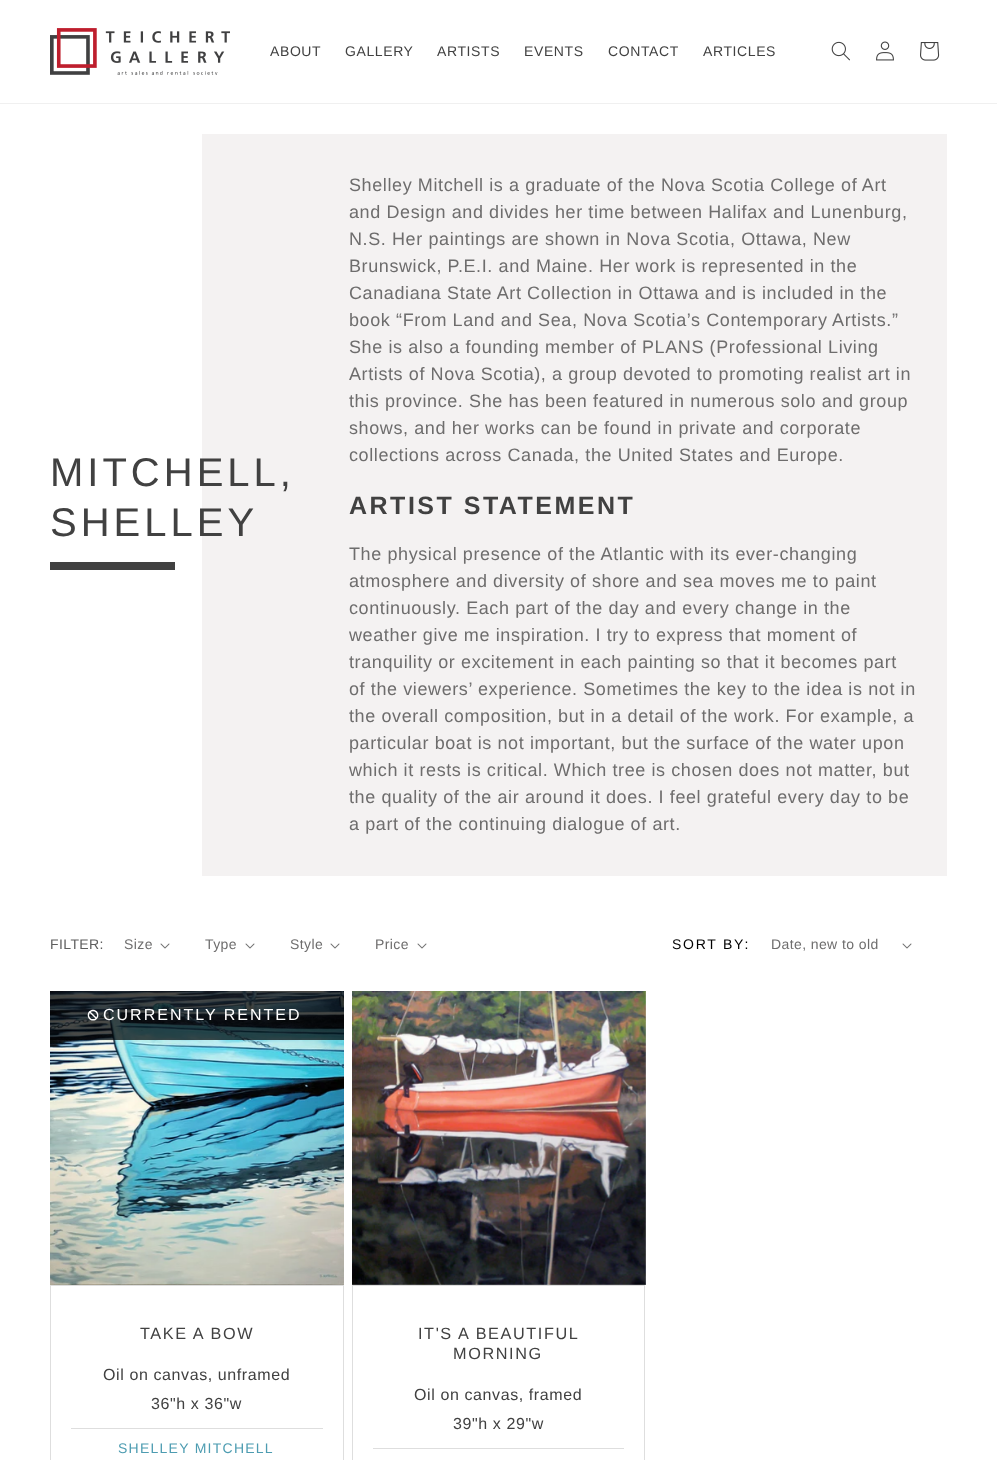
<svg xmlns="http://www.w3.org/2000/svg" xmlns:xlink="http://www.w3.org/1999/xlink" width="997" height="1460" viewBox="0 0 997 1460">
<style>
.cls-1{font:14px Liberation Sans;letter-spacing:0.6px;fill:#414141}
.cls-2{font:40px Liberation Sans;letter-spacing:4px;fill:#414141}
.cls-3{font:18px Liberation Sans;letter-spacing:0.6px;fill:#6e6d6d}
.cls-4{font:bold 25px Liberation Sans;letter-spacing:2.5px;fill:#414141}
.cls-5{font:14px Liberation Sans;letter-spacing:0.4px;fill:#5e5e5e}
.cls-6{font:14px Liberation Sans;letter-spacing:0.4px;fill:#6e6d6d}
.cls-7{font:14px Liberation Sans;letter-spacing:1.75px;fill:#000000}
.cls-8{font:16px Liberation Sans;letter-spacing:2px;fill:#ffffff}
.cls-9{font:16.25px Liberation Sans;letter-spacing:1.6px;fill:#414141}
.cls-10{font:16px Liberation Sans;letter-spacing:0.6px;fill:#414141}
.cls-11{font:14px Liberation Sans;letter-spacing:1.25px;fill:#4d9cb1}
</style>
<rect width="100%" height="100%" fill="#ffffff"/>
<rect fill="#f0f0f0" x="0" y="103" width="997" height="1"/>
<image xlink:href="image0.png" x="50" y="28" width="180" height="47"/>
<image xlink:href="image1.png" x="831" y="41" width="19" height="20"/>
<image xlink:href="image2.png" x="876" y="41" width="18" height="20"/>
<image xlink:href="image3.png" x="920" y="42" width="20" height="19"/>
<rect fill="#f4f2f2" x="202" y="134" width="745" height="742"/>
<rect fill="#414141" x="50" y="562" width="125" height="8"/>
<image xlink:href="image4.png" x="160" y="943" width="10" height="6"/>
<image xlink:href="image4.png" x="245" y="943" width="10" height="6"/>
<image xlink:href="image4.png" x="330" y="943" width="10" height="6"/>
<image xlink:href="image4.png" x="417" y="943" width="10" height="6"/>
<image xlink:href="image4.png" x="902" y="943" width="10" height="6"/>
<image xlink:href="image5.png" x="50" y="991" width="294" height="294"/>
<rect fill="#000000" fill-opacity="0.7" x="50" y="991" width="294" height="49"/>
<image xlink:href="image6.png" x="87" y="1009" width="12" height="12"/>
<rect fill="none" stroke="#dedede" x="50.5" y="1285.5" width="293" height="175"/>
<rect fill="#dedede" x="71" y="1428" width="252" height="1"/>
<image xlink:href="image7.png" x="352" y="991" width="294" height="294"/>
<rect fill="none" stroke="#dedede" x="352.5" y="1285.5" width="292" height="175"/>
<rect fill="#dedede" x="373" y="1448" width="251" height="1"/>
<text class="cls-1" x="270" y="56">ABOUT</text>
<text class="cls-1" x="345" y="56">GALLERY</text>
<text class="cls-1" x="437" y="56">ARTISTS</text>
<text class="cls-1" x="524" y="56">EVENTS</text>
<text class="cls-1" x="608" y="56">CONTACT</text>
<text class="cls-1" x="703" y="56">ARTICLES</text>
<text class="cls-2"><tspan x="50" y="486">MITCHELL,</tspan><tspan x="50" y="536">SHELLEY</tspan></text>
<text class="cls-3"><tspan x="349" y="191">Shelley Mitchell is a graduate of the Nova Scotia College of Art</tspan><tspan x="349" y="218">and Design and divides her time between Halifax and Lunenburg,</tspan><tspan x="349" y="245">N.S. Her paintings are shown in Nova Scotia, Ottawa, New</tspan><tspan x="349" y="272">Brunswick, P.E.I. and Maine. Her work is represented in the</tspan><tspan x="349" y="299">Canadiana State Art Collection in Ottawa and is included in the</tspan><tspan x="349" y="326">book “From Land and Sea, Nova Scotia’s Contemporary Artists.”</tspan><tspan x="349" y="353">She is also a founding member of PLANS (Professional Living</tspan><tspan x="349" y="380">Artists of Nova Scotia), a group devoted to promoting realist art in</tspan><tspan x="349" y="407">this province. She has been featured in numerous solo and group</tspan><tspan x="349" y="434">shows, and her works can be found in private and corporate</tspan><tspan x="349" y="461">collections across Canada, the United States and Europe.</tspan></text>
<text class="cls-4" x="349" y="514">ARTIST STATEMENT</text>
<text class="cls-3"><tspan x="349" y="560">The physical presence of the Atlantic with its ever-changing</tspan><tspan x="349" y="587">atmosphere and diversity of shore and sea moves me to paint</tspan><tspan x="349" y="614">continuously. Each part of the day and every change in the</tspan><tspan x="349" y="641">weather give me inspiration. I try to express that moment of</tspan><tspan x="349" y="668">tranquility or excitement in each painting so that it becomes part</tspan><tspan x="349" y="695">of the viewers’ experience. Sometimes the key to the idea is not in</tspan><tspan x="349" y="722">the overall composition, but in a detail of the work. For example, a</tspan><tspan x="349" y="749">particular boat is not important, but the surface of the water upon</tspan><tspan x="349" y="776">which it rests is critical. Which tree is chosen does not matter, but</tspan><tspan x="349" y="803">the quality of the air around it does. I feel grateful every day to be</tspan><tspan x="349" y="830">a part of the continuing dialogue of art.</tspan></text>
<text class="cls-5" x="50" y="949">FILTER:</text>
<text class="cls-6" x="124" y="949">Size</text>
<text class="cls-6" x="205" y="949">Type</text>
<text class="cls-6" x="290" y="949">Style</text>
<text class="cls-6" x="375" y="949">Price</text>
<text class="cls-7" x="672" y="949">SORT BY:</text>
<text class="cls-6" x="771" y="949">Date, new to old</text>
<text class="cls-8" x="103" y="1020">CURRENTLY RENTED</text>
<text class="cls-9" x="140" y="1339">TAKE A BOW</text>
<text class="cls-10" x="103" y="1380">Oil on canvas, unframed</text>
<text class="cls-10" x="151" y="1409">36"h x 36"w</text>
<text class="cls-11" x="118" y="1453">SHELLEY MITCHELL</text>
<text class="cls-9" x="418" y="1339">IT'S A BEAUTIFUL</text>
<text class="cls-9" x="453" y="1359">MORNING</text>
<text class="cls-10" x="414" y="1400">Oil on canvas, framed</text>
<text class="cls-10" x="453" y="1429">39"h x 29"w</text>
</svg>
